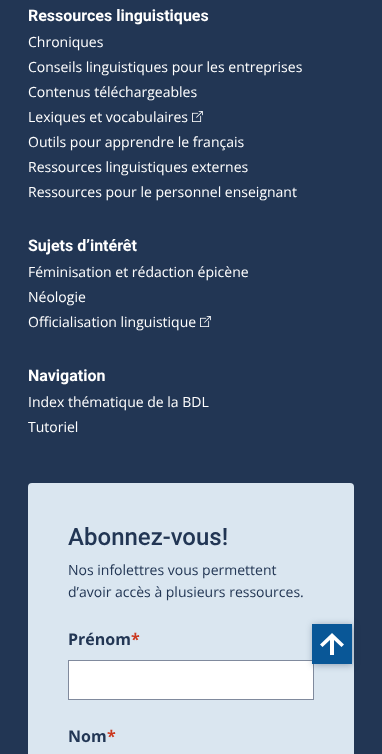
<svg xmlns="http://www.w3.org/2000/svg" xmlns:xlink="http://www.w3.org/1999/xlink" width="382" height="754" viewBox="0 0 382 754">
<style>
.cls-1{font:bold 16px Roboto;fill:#ffffff}
.cls-2{font:14px Open Sans;fill:#ffffff}
.cls-3{font:500 24px Roboto;fill:#223654}
.cls-4{font:14px Open Sans;fill:#223654}
.cls-5{font:bold 16px Open Sans;fill:#223654}
.cls-6{font:bold 16px Open Sans;fill:#cb381f}
</style>
<rect width="100%" height="100%" fill="#223654"/>
<image xlink:href="image0.png" x="192" y="111" width="11" height="11"/>
<image xlink:href="image0.png" x="200" y="316" width="11" height="11"/>
<rect fill="#dae6f0" x="28" y="483" width="326" height="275" rx="4"/>
<rect fill="#ffffff" stroke="#808a9d" x="68.5" y="660.5" width="245" height="39"/>
<rect fill="#223654" fill-opacity="0.4" filter="blur(3.5px)" x="313" y="625" width="40" height="40"/>
<rect fill="#095797" x="312" y="624" width="40" height="40"/>
<path fill="#ffffff" d="M330.5 634.5L320 644.5L322.5 647L330 640V655H334V640L341.5 647L344 644.5L332 633Z"/>
<text class="cls-1" x="28" y="21">Ressources linguistiques</text>
<text class="cls-2"><tspan x="28" y="47">Chroniques</tspan><tspan x="28" y="72">Conseils linguistiques pour les entreprises</tspan><tspan x="28" y="97">Contenus téléchargeables</tspan><tspan x="28" y="122">Lexiques et vocabulaires</tspan><tspan x="28" y="147">Outils pour apprendre le français</tspan><tspan x="28" y="172">Ressources linguistiques externes</tspan><tspan x="28" y="197">Ressources pour le personnel enseignant</tspan></text>
<text class="cls-1" x="28" y="251">Sujets d’intérêt</text>
<text class="cls-2"><tspan x="28" y="277">Féminisation et rédaction épicène</tspan><tspan x="28" y="302">Néologie</tspan><tspan x="28" y="327">Officialisation linguistique</tspan></text>
<text class="cls-1" x="28" y="381">Navigation</text>
<text class="cls-2"><tspan x="28" y="407">Index thématique de la BDL</tspan><tspan x="28" y="432">Tutoriel</tspan></text>
<text class="cls-3" x="68" y="545">Abonnez-vous!</text>
<text class="cls-4"><tspan x="68" y="575">Nos infolettres vous permettent</tspan><tspan x="68" y="597">d’avoir accès à plusieurs ressources.</tspan></text>
<text class="cls-5" x="68" y="645">Prénom</text>
<text class="cls-6" x="131" y="645">*</text>
<text class="cls-5" x="68" y="742">Nom</text>
<text class="cls-6" x="107" y="742">*</text>
</svg>
